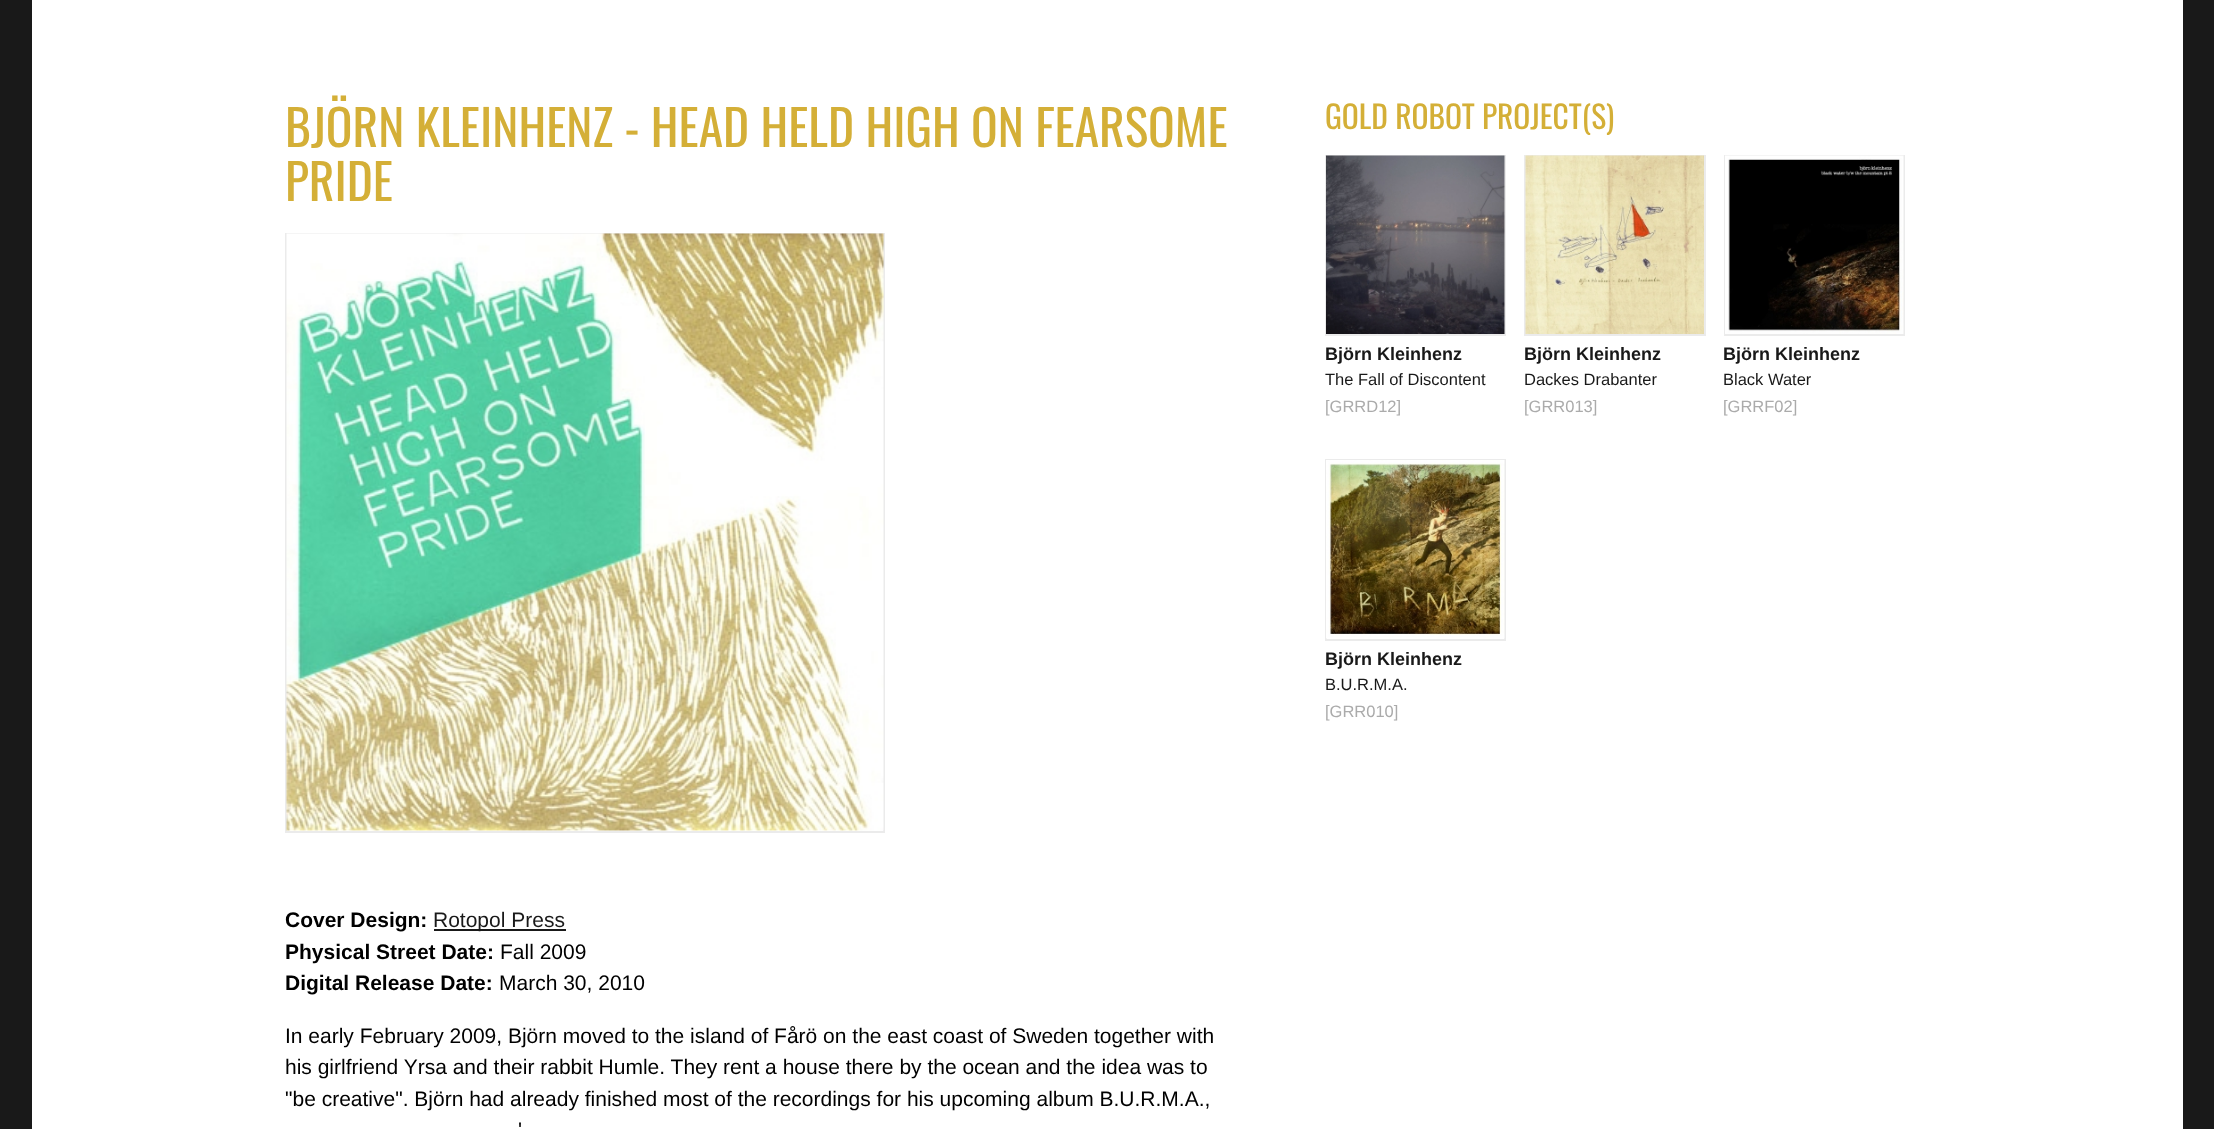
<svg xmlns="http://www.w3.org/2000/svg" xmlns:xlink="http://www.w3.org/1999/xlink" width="2214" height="1129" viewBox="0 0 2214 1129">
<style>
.cls-1{font:49.5px Oswald;fill:#d4af37}
.cls-2{font:bold 21px Liberation Sans;fill:#000000}
.cls-3{font:21px Liberation Sans;fill:#191919}
.cls-4{font:21px Liberation Sans;fill:#000000}
.cls-5{font:31.5px Oswald;fill:#d4af37}
.cls-6{font:bold 18px Liberation Sans;fill:#191919}
.cls-7{font:16.5px Liberation Sans;fill:#191919}
.cls-8{font:16.5px Liberation Sans;fill:#ababab}
</style>
<rect width="100%" height="100%" fill="#191919"/>
<rect fill="#ffffff" x="32" y="0" width="2151" height="1129"/>
<rect fill="none" stroke="#ebebeb" stroke-width="2" x="286" y="234" width="598" height="598"/>
<image xlink:href="image0.png" x="286" y="233" width="598" height="598"/>
<rect fill="#191919" x="434" y="929" width="132" height="2"/>
<rect fill="none" stroke="#ebebeb" stroke-width="2" x="1326" y="156" width="179" height="179"/>
<image xlink:href="image1.png" x="1326" y="155" width="179" height="179"/>
<rect fill="none" stroke="#ebebeb" stroke-width="2" x="1525" y="156" width="180" height="179"/>
<image xlink:href="image2.png" x="1525" y="155" width="179" height="179"/>
<rect fill="none" stroke="#ebebeb" stroke-width="2" x="1725" y="156" width="179" height="179"/>
<image xlink:href="image3.png" x="1725" y="155" width="179" height="179"/>
<rect fill="none" stroke="#ebebeb" stroke-width="2" x="1326" y="460" width="179" height="180"/>
<image xlink:href="image4.png" x="1326" y="460" width="179" height="179"/>
<text class="cls-1"><tspan x="285" y="147">BJÖRN KLEINHENZ - HEAD HELD HIGH ON FEARSOME</tspan><tspan x="285" y="201">PRIDE</tspan></text>
<text class="cls-2" x="285" y="927">Cover Design:</text>
<text class="cls-3" x="433" y="927">Rotopol Press</text>
<text class="cls-2" x="285" y="959">Physical Street Date:</text>
<text class="cls-4" x="500" y="959">Fall 2009</text>
<text class="cls-2" x="285" y="990">Digital Release Date:</text>
<text class="cls-4" x="499" y="990">March 30, 2010</text>
<text class="cls-4"><tspan x="285" y="1043">In early February 2009, Björn moved to the island of Fårö on the east coast of Sweden together with</tspan><tspan x="285" y="1074">his girlfriend Yrsa and their rabbit Humle. They rent a house there by the ocean and the idea was to</tspan><tspan x="285" y="1106">"be creative". Björn had already finished most of the recordings for his upcoming album B.U.R.M.A.,</tspan></text>
<text class="cls-4" x="518" y="1137">'</text>
<text class="cls-5" x="1325" y="129">GOLD ROBOT PROJECT(S)</text>
<text class="cls-6" x="1325" y="360">Björn Kleinhenz</text>
<text class="cls-7" x="1325" y="385">The Fall of Discontent</text>
<text class="cls-8" x="1325" y="412">[GRRD12]</text>
<text class="cls-6" x="1524" y="360">Björn Kleinhenz</text>
<text class="cls-7" x="1524" y="385">Dackes Drabanter</text>
<text class="cls-8" x="1524" y="412">[GRR013]</text>
<text class="cls-6" x="1723" y="360">Björn Kleinhenz</text>
<text class="cls-7" x="1723" y="385">Black Water</text>
<text class="cls-8" x="1723" y="412">[GRRF02]</text>
<text class="cls-6" x="1325" y="665">Björn Kleinhenz</text>
<text class="cls-7" x="1325" y="690">B.U.R.M.A.</text>
<text class="cls-8" x="1325" y="717">[GRR010]</text>
</svg>
